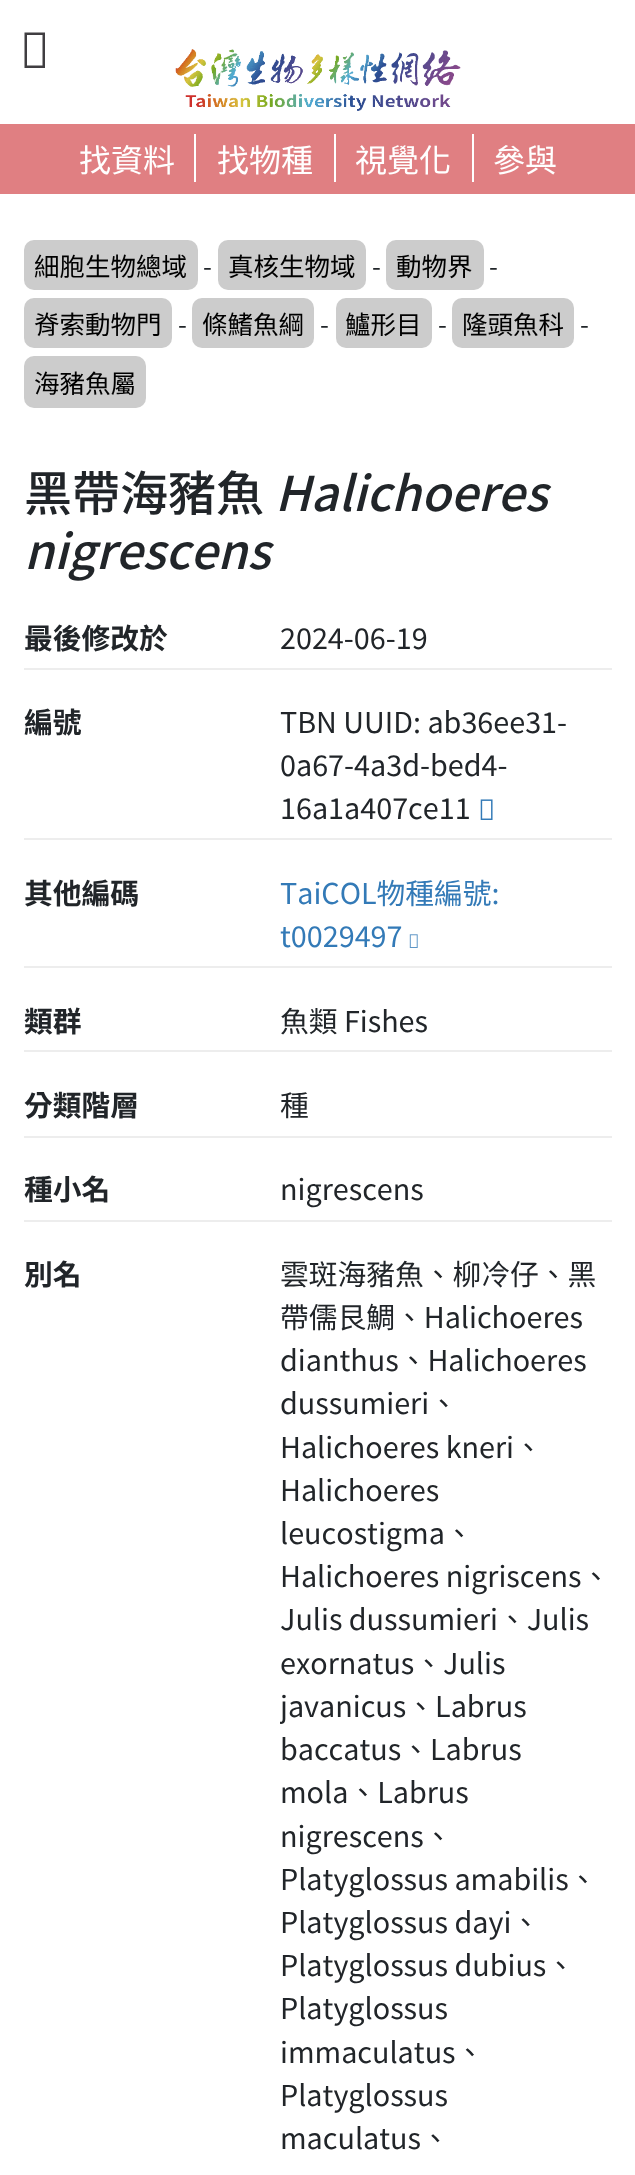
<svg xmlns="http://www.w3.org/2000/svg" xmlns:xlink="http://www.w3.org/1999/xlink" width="635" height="2175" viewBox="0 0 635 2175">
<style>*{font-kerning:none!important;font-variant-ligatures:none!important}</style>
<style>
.cls-1{font:32px Noto Sans TC;fill:#ffffff}
.cls-2{font:25.5px Noto Sans TC;fill:#000000}
.cls-3{font:25.5px Noto Sans TC;fill:#212529}
.cls-4{font:500 48px Noto Sans TC;fill:#212529}
.cls-5{font:italic 500 48px Noto Sans TC;fill:#212529}
.cls-6{font:bold 28.75px Noto Sans TC;fill:#212529}
.cls-7{font:28.75px Noto Sans TC;fill:#212529}
.cls-8{font:28.75px Noto Sans TC;fill:#337ab7}
</style>
<defs>
<clipPath id="clip1"><rect x="280" y="1250" width="332" height="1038"/></clipPath>
</defs>
<rect width="100%" height="100%" fill="#ffffff"/>
<path fill="#403e41" d="M24.5 68V32.5H45V68ZM27 65.5H42.5V35H27Z"/>
<image xlink:href="image0.png" x="175" y="49" width="286" height="62"/>
<rect fill="#e07f82" x="0" y="124" width="635" height="70"/>
<rect fill="#ffffff" x="194" y="134" width="2" height="48"/>
<rect fill="#ffffff" x="334" y="134" width="2" height="48"/>
<rect fill="#ffffff" x="472" y="134" width="2" height="48"/>
<rect fill="#cccccc" x="24" y="240" width="174" height="50" rx="10"/>
<rect fill="#cccccc" x="218" y="240" width="148" height="50" rx="10"/>
<rect fill="#cccccc" x="386" y="240" width="98" height="50" rx="10"/>
<rect fill="#cccccc" x="24" y="298" width="148" height="50" rx="10"/>
<rect fill="#cccccc" x="192" y="298" width="122" height="50" rx="10"/>
<rect fill="#cccccc" x="336" y="298" width="96" height="50" rx="10"/>
<rect fill="#cccccc" x="452" y="298" width="122" height="50" rx="10"/>
<rect fill="#cccccc" x="24" y="356" width="122" height="52" rx="10"/>
<rect fill="#ededed" x="24" y="668" width="588" height="2"/>
<rect fill="#ededed" x="24" y="838" width="588" height="2"/>
<image xlink:href="image1.png" x="480" y="799" width="13" height="21"/>
<rect fill="#ededed" x="24" y="966" width="588" height="2"/>
<image xlink:href="image2.png" x="409" y="934" width="9" height="14"/>
<rect fill="#ededed" x="24" y="1050" width="588" height="2"/>
<rect fill="#ededed" x="24" y="1136" width="588" height="2"/>
<rect fill="#ededed" x="24" y="1220" width="588" height="2"/>
<text class="cls-1" x="79" y="172">找資料</text>
<text class="cls-1" x="217" y="172">找物種</text>
<text class="cls-1" x="355" y="172">視覺化</text>
<text class="cls-1" x="493" y="172">參與</text>
<text class="cls-2" x="34" y="276">細胞生物總域</text>
<text class="cls-3" x="203" y="276">-</text>
<text class="cls-2" x="228" y="276">真核生物域</text>
<text class="cls-3" x="372" y="276">-</text>
<text class="cls-2" x="396" y="276">動物界</text>
<text class="cls-3" x="489" y="276">-</text>
<text class="cls-2" x="34" y="334">脊索動物門</text>
<text class="cls-3" x="178" y="334">-</text>
<text class="cls-2" x="202" y="334">條鰭魚綱</text>
<text class="cls-3" x="320" y="334">-</text>
<text class="cls-2" x="345" y="334">鱸形目</text>
<text class="cls-3" x="438" y="334">-</text>
<text class="cls-2" x="462" y="334">隆頭魚科</text>
<text class="cls-3" x="580" y="334">-</text>
<text class="cls-2" x="34" y="393">海豬魚屬</text>
<text class="cls-4" x="24" y="511">黑帶海豬魚</text>
<text class="cls-5" x="275" y="511">Halichoeres</text>
<text class="cls-5" x="24" y="569">nigrescens</text>
<text class="cls-6" x="24" y="649">最後修改於</text>
<text class="cls-7" x="280" y="649">2024-06-19</text>
<text class="cls-6" x="24" y="733">編號</text>
<text class="cls-7"><tspan x="280" y="733">TBN UUID: ab36ee31-</tspan><tspan x="280" y="776">0a67-4a3d-bed4-</tspan><tspan x="280" y="819">16a1a407ce11</tspan></text>
<text class="cls-6" x="24" y="904">其他編碼</text>
<text class="cls-8"><tspan x="280" y="904">TaiCOL物種編號:</tspan><tspan x="280" y="947">t0029497</tspan></text>
<text class="cls-6" x="24" y="1032">類群</text>
<text class="cls-7" x="280" y="1032">魚類 Fishes</text>
<text class="cls-6" x="24" y="1116">分類階層</text>
<text class="cls-7" x="280" y="1116">種</text>
<text class="cls-6" x="24" y="1200">種小名</text>
<text class="cls-7" x="280" y="1200">nigrescens</text>
<text class="cls-6" x="24" y="1285">別名</text>
<text class="cls-7"><tspan x="280" y="1285">雲斑海豬魚、柳冷仔、黑</tspan><tspan x="280" y="1328">帶儒艮鯛、Halichoeres</tspan><tspan x="280" y="1371">dianthus、Halichoeres</tspan><tspan x="280" y="1414">dussumieri、</tspan><tspan x="280" y="1458">Halichoeres kneri、</tspan><tspan x="280" y="1501">Halichoeres</tspan><tspan x="280" y="1544">leucostigma、</tspan><tspan x="280" y="1587">Halichoeres nigriscens、</tspan><tspan x="280" y="1630">Julis dussumieri、Julis</tspan><tspan x="280" y="1674">exornatus、Julis</tspan></text>
<g clip-path="url(#clip1)">
<text class="cls-7" x="280" y="1717">javanicus、Labrus</text>
</g>
<text class="cls-7"><tspan x="280" y="1760">baccatus、Labrus</tspan><tspan x="280" y="1803">mola、Labrus</tspan><tspan x="280" y="1847">nigrescens、</tspan><tspan x="280" y="1890">Platyglossus amabilis、</tspan><tspan x="280" y="1933">Platyglossus dayi、</tspan><tspan x="280" y="1976">Platyglossus dubius、</tspan><tspan x="280" y="2019">Platyglossus</tspan><tspan x="280" y="2063">immaculatus、</tspan><tspan x="280" y="2106">Platyglossus</tspan><tspan x="280" y="2149">maculatus、</tspan></text>
</svg>
